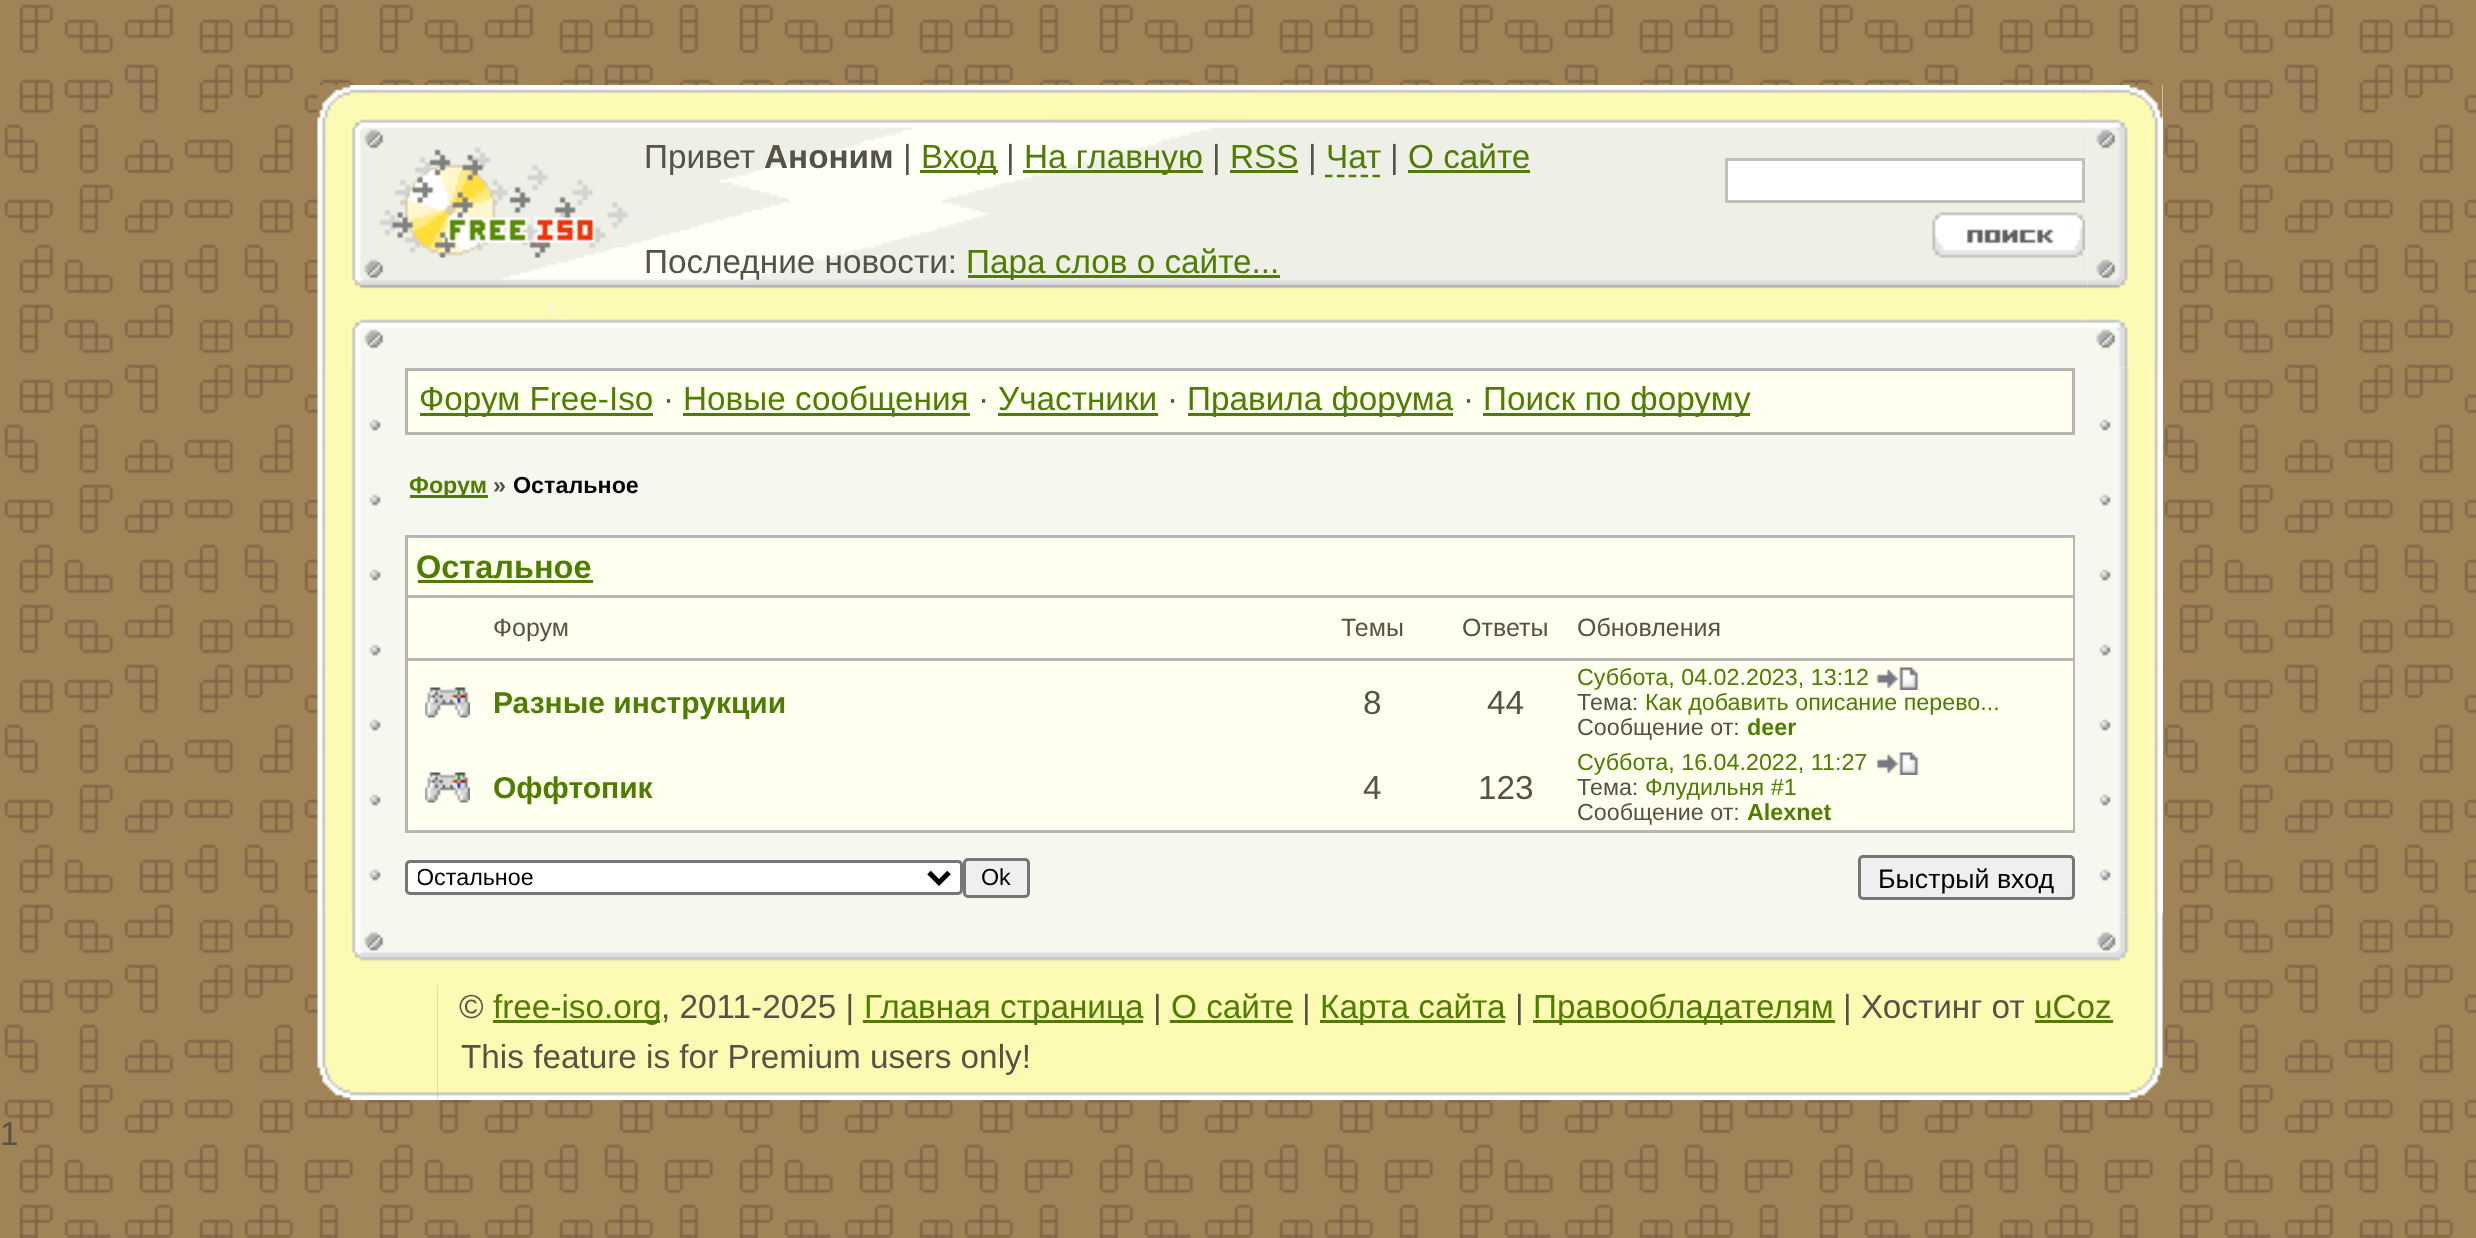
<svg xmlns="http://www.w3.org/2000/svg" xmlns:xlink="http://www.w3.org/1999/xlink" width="2476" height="1238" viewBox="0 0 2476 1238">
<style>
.cls-1{font:33.3px Liberation Sans;fill:#555346}
.cls-2{font:bold 33.3px Liberation Sans;fill:#555346}
.cls-3{font:33.3px Liberation Sans;fill:#4f7d00}
.cls-4{font:bold 23.3px Liberation Sans;fill:#4f7d00}
.cls-5{font:bold 23.3px Liberation Sans;fill:#555346}
.cls-6{font:bold 23.3px Liberation Sans;fill:#000000}
.cls-7{font:bold 32.5px Liberation Sans;fill:#4f7d00}
.cls-8{font:25px Liberation Sans;fill:#555346}
.cls-9{font:bold 30px Liberation Sans;fill:#4f7d00}
.cls-10{font:23.3px Liberation Sans;fill:#4f7d00}
.cls-11{font:23.3px Liberation Sans;fill:#555346}
.cls-12{font:23.3px Liberation Sans;fill:#000000}
.cls-13{font:26.75px Liberation Sans;fill:#000000}
</style>
<defs>
<clipPath id="clip1"><rect x="418" y="863" width="502" height="30"/></clipPath>
</defs>
<rect width="100%" height="100%" fill="#a18358"/>
<image xlink:href="image0.png" x="4" y="4" width="2472" height="1234"/>
<rect fill="#fdfdd4" x="318" y="85" width="1845" height="283"/>
<image xlink:href="image1.png" x="317" y="85" width="1771" height="283"/>
<image xlink:href="image2.png" x="379" y="147" width="249" height="111"/>
<rect fill="#4f7d00" x="920" y="170" width="78" height="3"/>
<rect fill="#4f7d00" x="1023" y="170" width="180" height="3"/>
<rect fill="#4f7d00" x="1230" y="170" width="68" height="3"/>
<path fill="none" stroke="#4f7d00" stroke-width="2.5" stroke-dasharray="7.5 4.38" d="M1325 176H1380"/>
<rect fill="#4f7d00" x="1408" y="170" width="122" height="3"/>
<rect fill="#4f7d00" x="968" y="275" width="312" height="3"/>
<rect fill="#ffffff" stroke="#c0c0c0" stroke-width="3" x="1726.5" y="159.5" width="357" height="42"/>
<image xlink:href="image3.png" x="1932" y="212" width="153" height="46"/>
<image xlink:href="image4.png" x="2087" y="85" width="76" height="283"/>
<rect fill="#f6f7ef" x="318" y="368" width="1845" height="545"/>
<image xlink:href="image5.png" x="317" y="367" width="75" height="546"/>
<rect fill="#feffef" stroke="#bab4b4" stroke-width="3" x="406.5" y="369.5" width="1667" height="64"/>
<rect fill="#4f7d00" x="420" y="413" width="233" height="3"/>
<rect fill="#4f7d00" x="683" y="413" width="287" height="3"/>
<rect fill="#4f7d00" x="998" y="413" width="160" height="3"/>
<rect fill="#4f7d00" x="1188" y="413" width="265" height="3"/>
<rect fill="#4f7d00" x="1483" y="413" width="267" height="3"/>
<rect fill="#4f7d00" x="410" y="495" width="78" height="3"/>
<rect fill="#feffef" x="408" y="538" width="1665" height="292"/>
<rect fill="#bab4b4" x="405" y="535" width="1670" height="3"/>
<rect fill="#bab4b4" x="2073" y="535" width="2" height="298"/>
<rect fill="#bab4b4" x="405" y="830" width="1670" height="3"/>
<rect fill="#bab4b4" x="405" y="535" width="3" height="298"/>
<rect fill="#4f7d00" x="418" y="580" width="175" height="3"/>
<rect fill="#bab4b4" x="405" y="595" width="1670" height="3"/>
<rect fill="#bab4b4" x="405" y="658" width="1670" height="3"/>
<image xlink:href="image6.png" x="425" y="687" width="45" height="31"/>
<image xlink:href="image7.png" x="1876" y="667" width="43" height="23"/>
<image xlink:href="image8.png" x="425" y="772" width="45" height="31"/>
<image xlink:href="image7.png" x="1876" y="752" width="43" height="23"/>
<rect fill="#ffffff" stroke="#767676" stroke-width="3" x="406.5" y="861.5" width="555" height="32" rx="3.5"/>
<path fill="none" stroke="#000000" stroke-width="5" d="M929 872.5L939 882.5L949 872.5"/>
<rect fill="#efefef" stroke="#767676" stroke-width="3" x="964.5" y="859.5" width="64" height="37" rx="3.5"/>
<rect fill="#efefef" stroke="#767676" stroke-width="3" x="1859.5" y="856.5" width="214" height="42" rx="3.5"/>
<image xlink:href="image9.png" x="2075" y="367" width="88" height="546"/>
<image xlink:href="image10.png" x="317" y="912" width="1846" height="73"/>
<image xlink:href="image11.png" x="317" y="985" width="121" height="115"/>
<image xlink:href="image12.png" x="437" y="985" width="1726" height="115"/>
<rect fill="#4f7d00" x="493" y="1020" width="167" height="3"/>
<rect fill="#4f7d00" x="863" y="1020" width="280" height="3"/>
<rect fill="#4f7d00" x="1170" y="1020" width="123" height="3"/>
<rect fill="#4f7d00" x="1320" y="1020" width="185" height="3"/>
<rect fill="#4f7d00" x="1533" y="1020" width="302" height="3"/>
<rect fill="#4f7d00" x="2035" y="1020" width="78" height="3"/>
<text class="cls-1" x="644" y="168">Привет</text>
<text class="cls-2" x="764" y="168">Аноним</text>
<text class="cls-1" x="903" y="168">|</text>
<text class="cls-3" x="921" y="168">Вход</text>
<text class="cls-1" x="1006" y="168">|</text>
<text class="cls-3" x="1024" y="168">На главную</text>
<text class="cls-1" x="1212" y="168">|</text>
<text class="cls-3" x="1230" y="168">RSS</text>
<text class="cls-1" x="1308" y="168">|</text>
<text class="cls-3" x="1326" y="168">Чат</text>
<text class="cls-1" x="1390" y="168">|</text>
<text class="cls-3" x="1408" y="168">О сайте</text>
<text class="cls-1" x="644" y="273">Последние новости:</text>
<text class="cls-3" x="966" y="273">Пара слов о сайте...</text>
<text class="cls-3" x="419" y="410">Форум Free-Iso</text>
<text class="cls-1" x="663" y="410">·</text>
<text class="cls-3" x="683" y="410">Новые сообщения</text>
<text class="cls-1" x="978" y="410">·</text>
<text class="cls-3" x="998" y="410">Участники</text>
<text class="cls-1" x="1167" y="410">·</text>
<text class="cls-3" x="1187" y="410">Правила форума</text>
<text class="cls-1" x="1463" y="410">·</text>
<text class="cls-3" x="1483" y="410">Поиск по форуму</text>
<text class="cls-4" x="409" y="493">Форум</text>
<text class="cls-5" x="493" y="493">»</text>
<text class="cls-6" x="513" y="493">Остальное</text>
<text class="cls-7" x="416" y="578">Остальное</text>
<text class="cls-8" x="493" y="636">Форум</text>
<text class="cls-8" x="1341" y="636">Темы</text>
<text class="cls-8" x="1462" y="636">Ответы</text>
<text class="cls-8" x="1577" y="636">Обновления</text>
<text class="cls-9" x="493" y="713">Разные инструкции</text>
<text class="cls-1" x="1363" y="714">8</text>
<text class="cls-1" x="1487" y="714">44</text>
<text class="cls-10" x="1577" y="685">Суббота, 04.02.2023, 13:12</text>
<text class="cls-11" x="1577" y="710">Тема:</text>
<text class="cls-10" x="1645" y="710">Как добавить описание перево...</text>
<text class="cls-11" x="1577" y="735">Сообщение от:</text>
<text class="cls-4" x="1747" y="735">deer</text>
<text class="cls-9" x="493" y="798">Оффтопик</text>
<text class="cls-1" x="1363" y="799">4</text>
<text class="cls-1" x="1478" y="799">123</text>
<text class="cls-10" x="1577" y="770">Суббота, 16.04.2022, 11:27</text>
<text class="cls-11" x="1577" y="795">Тема:</text>
<text class="cls-10" x="1645" y="795">Флудильня #1</text>
<text class="cls-11" x="1577" y="820">Сообщение от:</text>
<text class="cls-4" x="1747" y="820">Alexnet</text>
<g clip-path="url(#clip1)">
<text class="cls-12" x="416" y="885">Остальное</text>
</g>
<text class="cls-12" x="981" y="885">Ok</text>
<text class="cls-13" x="1878" y="888">Быстрый вход</text>
<text class="cls-1" x="459" y="1018">©</text>
<text class="cls-3" x="493" y="1018">free-iso.org</text>
<text class="cls-1" x="661" y="1018">, 2011-2025 |</text>
<text class="cls-3" x="864" y="1018">Главная страница</text>
<text class="cls-1" x="1153" y="1018">|</text>
<text class="cls-3" x="1171" y="1018">О сайте</text>
<text class="cls-1" x="1302" y="1018">|</text>
<text class="cls-3" x="1320" y="1018">Карта сайта</text>
<text class="cls-1" x="1515" y="1018">|</text>
<text class="cls-3" x="1533" y="1018">Правообладателям</text>
<text class="cls-1" x="1843" y="1018">| Хостинг от</text>
<text class="cls-3" x="2034" y="1018">uCoz</text>
<text class="cls-1" x="461" y="1068">This feature is for Premium users only!</text>
<text class="cls-1" x="0" y="1145">1</text>
</svg>
